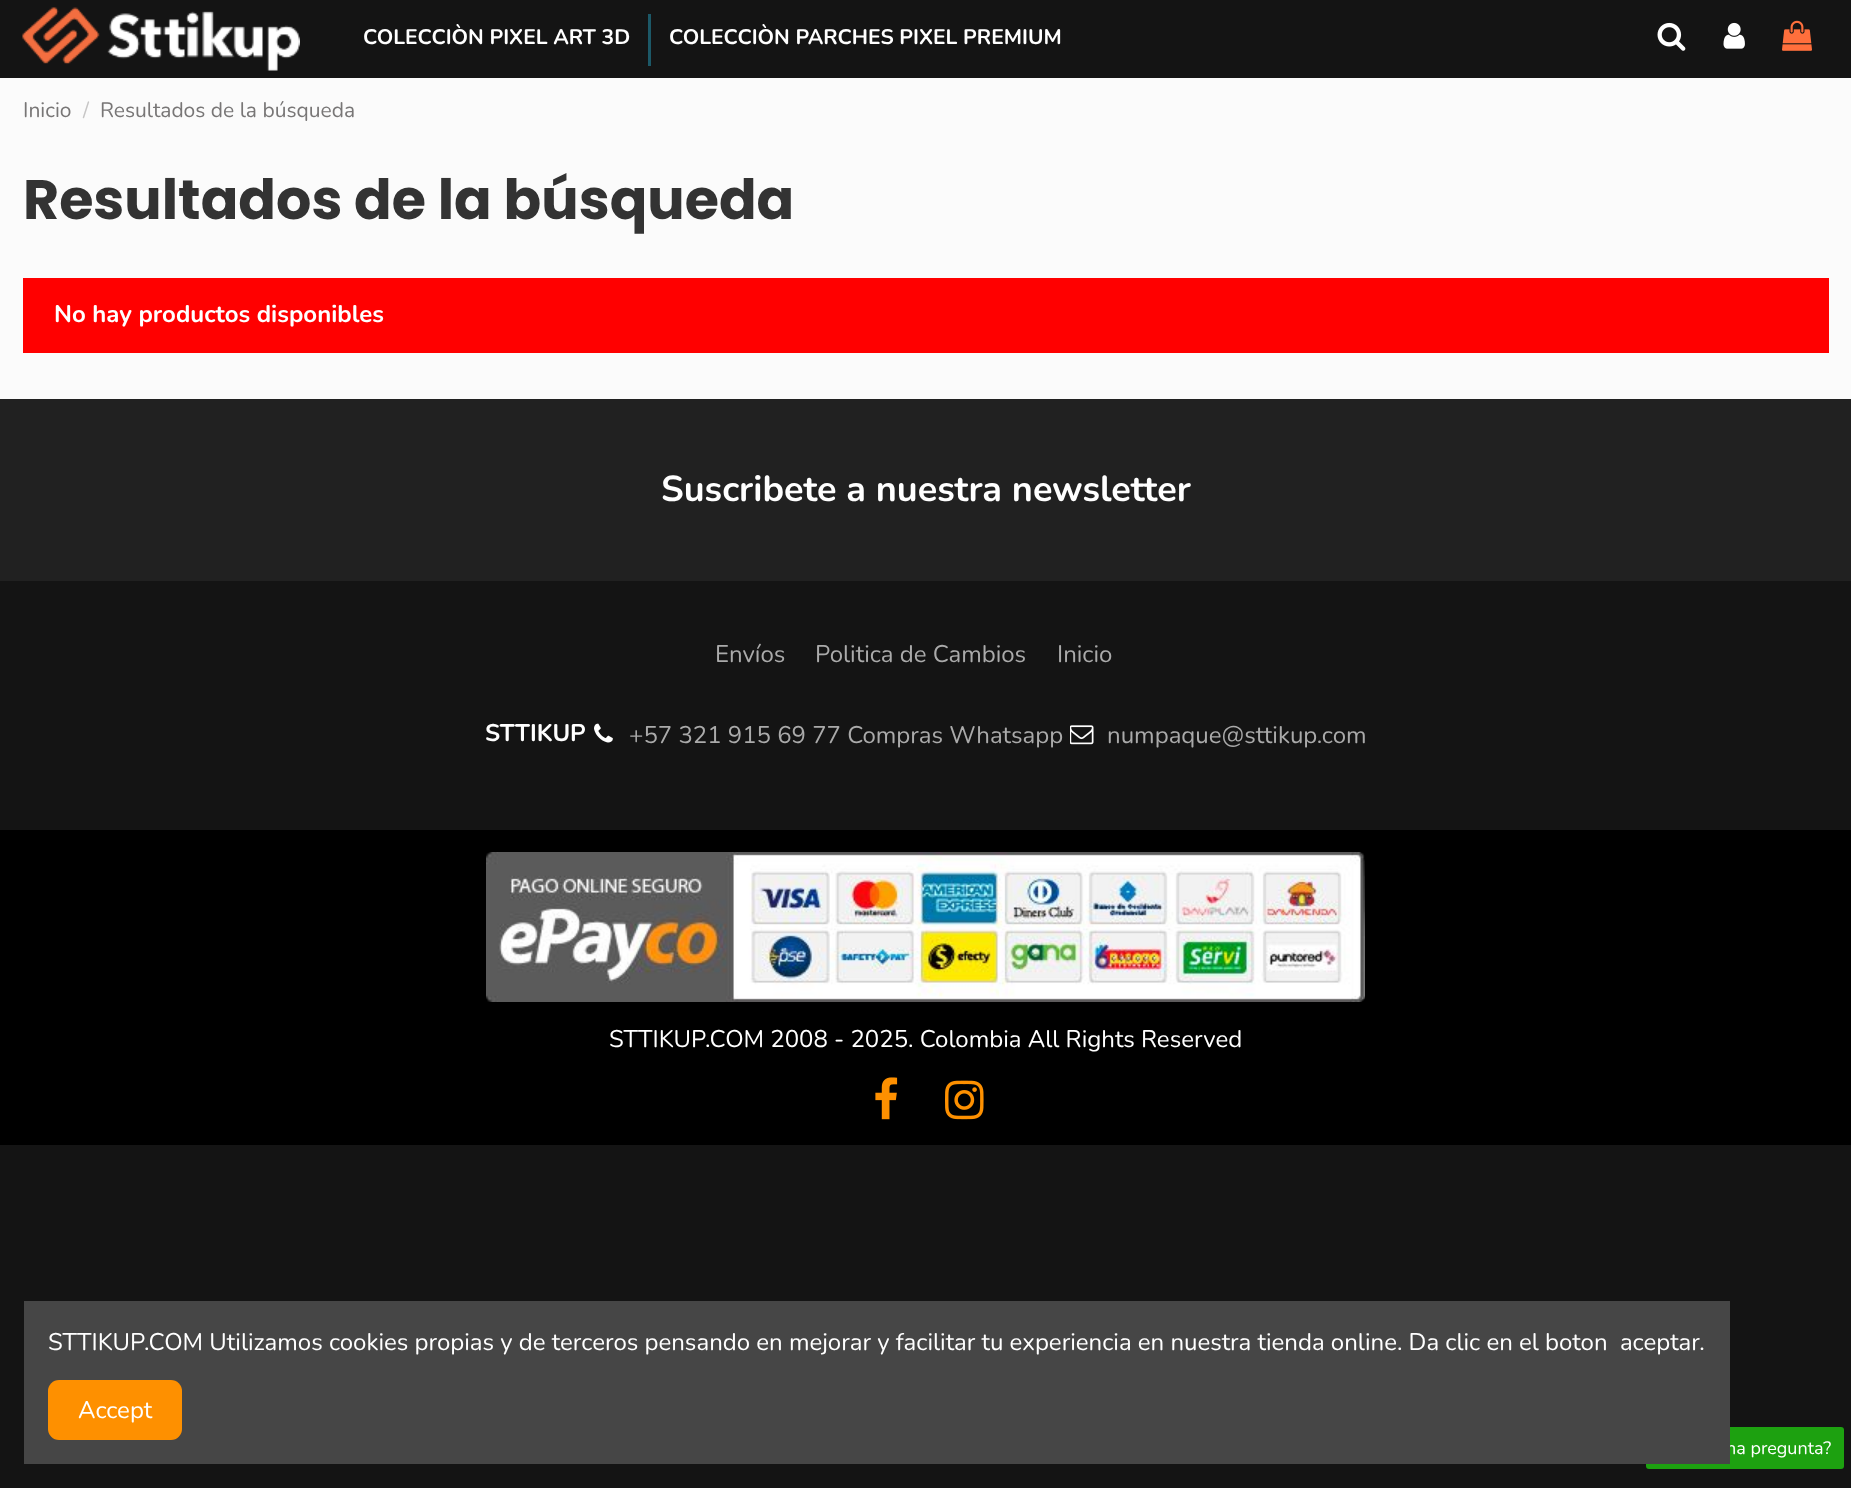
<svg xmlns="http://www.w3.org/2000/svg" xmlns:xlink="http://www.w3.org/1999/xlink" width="1851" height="1488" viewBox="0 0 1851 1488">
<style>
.cls-1{font:bold 21px Nunito;fill:#ffffff}
.cls-2{font:21px Nunito;fill:#787676}
.cls-3{font:21px Nunito;fill:#c7c6c6}
.cls-4{font:bold 55.5px Poppins;fill:#333333}
.cls-5{font:bold 24px Nunito;fill:#ffffff}
.cls-6{font:bold 36px Nunito;fill:#ffffff}
.cls-7{font:24px Nunito;fill:#aaaaaa}
.cls-8{font:18px Nunito;fill:#ffffff}
.cls-9{font:24px Nunito;fill:#ffffff}
</style>
<rect width="100%" height="100%" fill="#141414"/>
<image xlink:href="image0.png" x="22" y="7" width="278" height="64"/>
<rect fill="#1c5867" x="648" y="14" width="3" height="52"/>
<image xlink:href="image1.png" x="1657" y="22" width="29" height="29"/>
<image xlink:href="image2.png" x="1723" y="22" width="22" height="27"/>
<image xlink:href="image3.png" x="1782" y="20" width="30" height="31"/>
<rect fill="#fbfbfb" x="0" y="78" width="1851" height="321"/>
<rect fill="#ff0000" x="23" y="278" width="1806" height="75"/>
<rect fill="#212121" x="0" y="399" width="1851" height="182"/>
<image xlink:href="image4.png" x="594" y="723" width="19" height="20"/>
<image xlink:href="image5.png" x="1070" y="725" width="24" height="20"/>
<rect fill="#1da110" x="1646" y="1427" width="198" height="42" rx="3"/>
<rect fill="#000000" x="0" y="830" width="1851" height="315"/>
<image xlink:href="image6.png" x="486" y="852" width="879" height="150"/>
<image xlink:href="image7.png" x="875" y="1077" width="23" height="43"/>
<image xlink:href="image8.png" x="945" y="1080" width="39" height="40"/>
<text class="cls-1" x="363" y="44">COLECCIÒN PIXEL ART 3D</text>
<text class="cls-1" x="669" y="44">COLECCIÒN PARCHES PIXEL PREMIUM</text>
<text class="cls-2" x="23" y="117">Inicio</text>
<text class="cls-3" x="83" y="117">/</text>
<text class="cls-2" x="100" y="117">Resultados de la búsqueda</text>
<text class="cls-4" x="23" y="219">Resultados de la búsqueda</text>
<text class="cls-5" x="54" y="322">No hay productos disponibles</text>
<text class="cls-6" x="661" y="501">Suscribete a nuestra newsletter</text>
<text class="cls-7" x="715" y="662">Envíos</text>
<text class="cls-7" x="815" y="662">Politica de Cambios</text>
<text class="cls-7" x="1057" y="662">Inicio</text>
<text class="cls-5" x="485" y="741">STTIKUP</text>
<text class="cls-7" x="629" y="743">+57 321 915 69 77 Compras Whatsapp</text>
<text class="cls-7" x="1107" y="743">numpaque@sttikup.com</text>
<text class="cls-8" x="1726" y="1454">na pregunta?</text>
<text class="cls-9" x="609" y="1047">STTIKUP.COM 2008 - 2025. Colombia All Rights Reserved</text>
<rect fill="#464646" x="24" y="1301" width="1706" height="163"/>
<text class="cls-9" xml:space="preserve" x="48" y="1350">STTIKUP.COM Utilizamos cookies propias y de terceros pensando en mejorar y facilitar tu experiencia en nuestra tienda online. Da clic en el boton  aceptar.</text>
<rect fill="#fe9000" x="48" y="1380" width="134" height="60" rx="11"/>
<text class="cls-9" x="78" y="1418">Accept</text>
</svg>
